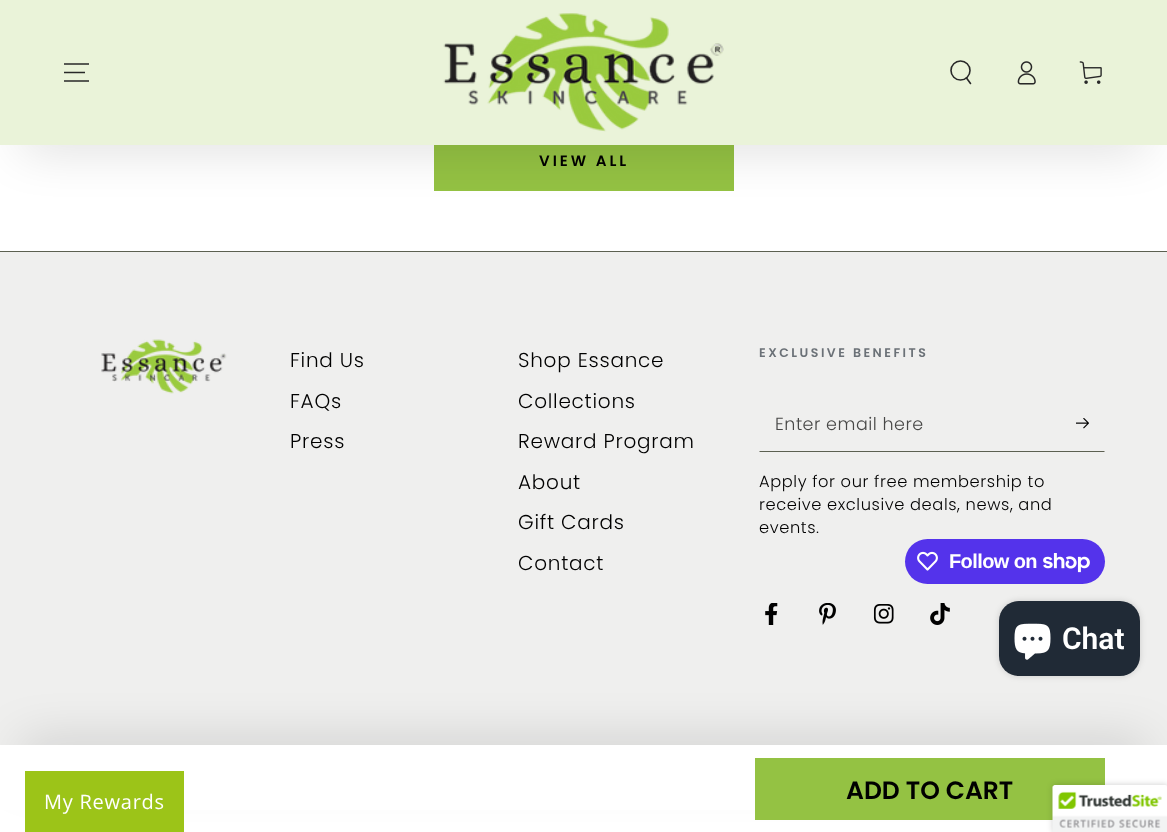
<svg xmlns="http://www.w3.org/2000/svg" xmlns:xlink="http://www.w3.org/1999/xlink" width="1167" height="832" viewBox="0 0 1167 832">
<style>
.cls-1{font:600 15px Poppins;letter-spacing:3px;fill:#000000}
.cls-2{font:600 25px Poppins;fill:#000000}
.cls-3{font:300 20px Poppins;letter-spacing:0.75px;fill:#000000}
.cls-4{font:600 12.5px Poppins;letter-spacing:2.5px;fill:#6b7177}
.cls-5{font:300 17.5px Poppins;letter-spacing:0.5px;fill:#484847}
.cls-6{font:300 16.25px Poppins;letter-spacing:0.6px;fill:#000000}
.cls-7{font:bold 20px Liberation Sans;letter-spacing:-0.6px;fill:#ffffff}
.cls-8{font:600 30px Roboto;fill:#ffffff}
.cls-9{font:20px Open Sans;letter-spacing:0.75px;fill:#ffffff}
</style>
<rect width="100%" height="100%" fill="#ffffff"/>
<rect fill="#94c243" x="434" y="145" width="300" height="46"/>
<rect fill="#000000" fill-opacity="0.2" filter="blur(25px)" x="19" y="120" width="1130" height="25" rx="12.5"/>
<rect fill="#eaf3d9" x="0" y="0" width="1167" height="145"/>
<image xlink:href="image0.png" x="443" y="13" width="281" height="119"/>
<path fill="none" stroke="#282828" stroke-width="1.4" d="M64 81H89M64 72.5H85M64 64H89"/>
<circle fill="none" stroke="#282828" stroke-width="1.6" cx="960.5" cy="70.5" r="9.5"/>
<path fill="none" stroke="#282828" stroke-width="1.6" stroke-linecap="round" d="M966.5 78L970.5 83.5"/>
<image xlink:href="image1.png" x="1017" y="61" width="19" height="24"/>
<image xlink:href="image2.png" x="1079" y="61" width="23" height="23"/>
<rect fill="#efefee" x="0" y="252" width="1167" height="493"/>
<rect fill="#000000" fill-opacity="0.2" filter="blur(25px)" x="19" y="745" width="1130" height="25" rx="12.5"/>
<rect fill="#ffffff" x="0" y="745" width="1167" height="65"/>
<rect fill="#94c243" x="755" y="758" width="350" height="62"/>
<rect fill="#5c6051" x="0" y="251" width="1167" height="1"/>
<image xlink:href="image3.png" x="101" y="339" width="126" height="55"/>
<path fill="#5c6051" d="M1105 452H759L760 451H1104Z"/>
<image xlink:href="image4.png" x="1076" y="418" width="13" height="11"/>
<rect fill="#5433eb" x="905" y="539" width="200" height="45" rx="22.5"/>
<image xlink:href="image5.png" x="917" y="551" width="21" height="20"/>
<image xlink:href="image6.png" x="1043" y="553" width="47" height="20"/>
<image xlink:href="image7.png" x="765" y="603" width="13" height="22"/>
<image xlink:href="image8.png" x="819" y="603" width="17" height="22"/>
<image xlink:href="image9.png" x="873" y="604" width="21" height="20"/>
<image xlink:href="image10.png" x="930" y="603" width="20" height="22"/>
<rect fill="#000000" fill-opacity="0.15" filter="blur(3px)" x="999" y="601" width="141" height="75" rx="20"/>
<rect fill="#202a36" x="999" y="601" width="141" height="75" rx="20"/>
<image xlink:href="image11.png" x="1014" y="623" width="37" height="37"/>
<rect fill="#9cc418" x="25" y="771" width="159" height="61"/>
<rect fill="#000000" fill-opacity="0.2" filter="blur(3px)" x="1053" y="785" width="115" height="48" rx="2.5"/>
<path fill="#ffffff" d="M1055.5 785H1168V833H1053V787.5C1053 786 1054 785 1055.5 785Z"/>
<image xlink:href="image12.png" x="1052" y="785" width="115" height="47"/>
<text class="cls-1" x="539" y="166">VIEW ALL</text>
<text class="cls-2" x="846" y="799">ADD TO CART</text>
<text class="cls-3" x="290" y="367">Find Us</text>
<text class="cls-3" x="290" y="408">FAQs</text>
<text class="cls-3" x="290" y="448">Press</text>
<text class="cls-3" x="518" y="367">Shop Essance</text>
<text class="cls-3" x="518" y="408">Collections</text>
<text class="cls-3" x="518" y="448">Reward Program</text>
<text class="cls-3" x="518" y="489">About</text>
<text class="cls-3" x="518" y="529">Gift Cards</text>
<text class="cls-3" x="518" y="570">Contact</text>
<text class="cls-4" x="759" y="357">EXCLUSIVE BENEFITS</text>
<text class="cls-5" x="775" y="430">Enter email here</text>
<text class="cls-6"><tspan x="759" y="487">Apply for our free membership to</tspan><tspan x="759" y="510">receive exclusive deals, news, and</tspan><tspan x="759" y="533">events.</tspan></text>
<text class="cls-7" x="949" y="568">Follow on</text>
<text class="cls-8" x="1062" y="649">Chat</text>
<text class="cls-9" x="44" y="809">My Rewards</text>
</svg>
